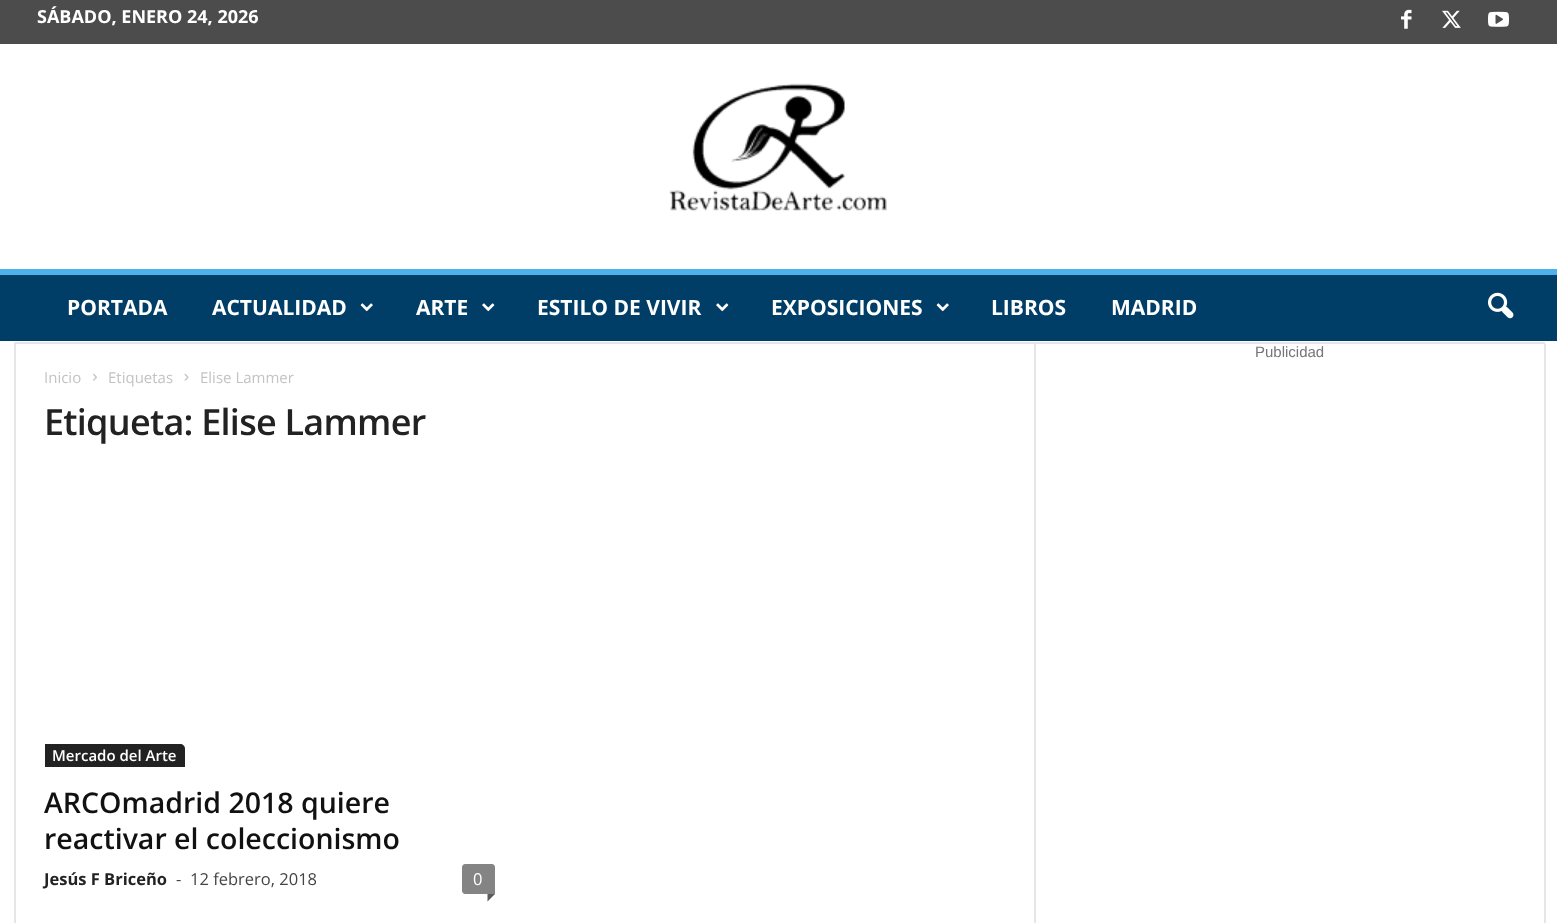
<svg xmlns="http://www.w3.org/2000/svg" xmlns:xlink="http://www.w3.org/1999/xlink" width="1557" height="923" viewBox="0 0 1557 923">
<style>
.cls-1{font:bold 18px Open Sans;fill:#ffffff}
.cls-2{font:bold 21px Open Sans;fill:#ffffff}
.cls-3{font:15px Liberation Sans;fill:#767676}
.cls-4{font:15px Open Sans;fill:#c3c3c3}
.cls-5{font:600 36px Open Sans;letter-spacing:-0.75px;fill:#222222}
.cls-6{font:600 15px Open Sans;fill:#ffffff}
.cls-7{font:600 28.5px Open Sans;fill:#111111}
.cls-8{font:bold 16.5px Open Sans;fill:#222222}
.cls-9{font:16.5px Open Sans;fill:#444444}
.cls-10{font:16.5px Open Sans;fill:#ffffff}
</style>
<rect width="100%" height="100%" fill="#ffffff"/>
<rect fill="#4c4c4c" x="0" y="0" width="1557" height="44"/>
<image xlink:href="image0.png" x="1401" y="9" width="11" height="20"/>
<image xlink:href="image1.png" x="1442" y="10" width="19" height="18"/>
<image xlink:href="image2.png" x="1488" y="11" width="21" height="16"/>
<image xlink:href="image3.png" x="669" y="83" width="218" height="128"/>
<rect fill="#003e68" x="0" y="275" width="1557" height="66"/>
<rect fill="#4db2ec" x="0" y="269" width="1557" height="6"/>
<image xlink:href="image4.png" x="360" y="303" width="13" height="9"/>
<image xlink:href="image5.png" x="482" y="303" width="13" height="9"/>
<image xlink:href="image5.png" x="716" y="303" width="13" height="9"/>
<image xlink:href="image4.png" x="936" y="303" width="13" height="9"/>
<image xlink:href="image6.png" x="1488" y="292" width="26" height="27"/>
<rect fill="#e6e6e6" x="14" y="342" width="1531" height="2"/>
<rect fill="#e6e6e6" x="14" y="344" width="2" height="579"/>
<image xlink:href="image7.png" x="93" y="373" width="4" height="8"/>
<image xlink:href="image8.png" x="184" y="373" width="5" height="8"/>
<path fill="#222222" d="M45 744H180C183 744 185 746 185 749V767H45Z"/>
<path fill="#848484" d="M465 864H492C493.5 864 495 865.5 495 867V894H465C463.5 894 462 892.5 462 891V867C462 865.5 463.5 864 465 864Z"/>
<path fill="#5b5b5b" d="M487.5 894H495L487.5 901.5Z"/>
<rect fill="#e6e6e6" x="1034" y="344" width="2" height="579"/>
<rect fill="#e6e6e6" x="1544" y="344" width="2" height="579"/>
<text class="cls-1" x="37" y="23">SÁBADO, ENERO 24, 2026</text>
<text class="cls-2" x="67" y="315">PORTADA</text>
<text class="cls-2" x="212" y="315">ACTUALIDAD</text>
<text class="cls-2" x="416" y="315">ARTE</text>
<text class="cls-2" x="537" y="315">ESTILO DE VIVIR</text>
<text class="cls-2" x="771" y="315">EXPOSICIONES</text>
<text class="cls-2" x="991" y="315">LIBROS</text>
<text class="cls-2" x="1111" y="315">MADRID</text>
<text class="cls-3" x="1255" y="357">Publicidad</text>
<text class="cls-4" x="44" y="383">Inicio</text>
<text class="cls-4" x="108" y="383">Etiquetas</text>
<text class="cls-4" x="200" y="383">Elise Lammer</text>
<text class="cls-5" x="44" y="435">Etiqueta: Elise Lammer</text>
<text class="cls-6" x="52" y="761">Mercado del Arte</text>
<text class="cls-7"><tspan x="44" y="813">ARCOmadrid 2018 quiere</tspan><tspan x="44" y="849">reactivar el coleccionismo</tspan></text>
<text class="cls-8" x="44" y="885">Jesús F Briceño</text>
<text class="cls-9" x="176" y="885">-</text>
<text class="cls-9" x="190" y="885">12 febrero, 2018</text>
<text class="cls-10" x="473" y="885">0</text>
</svg>
